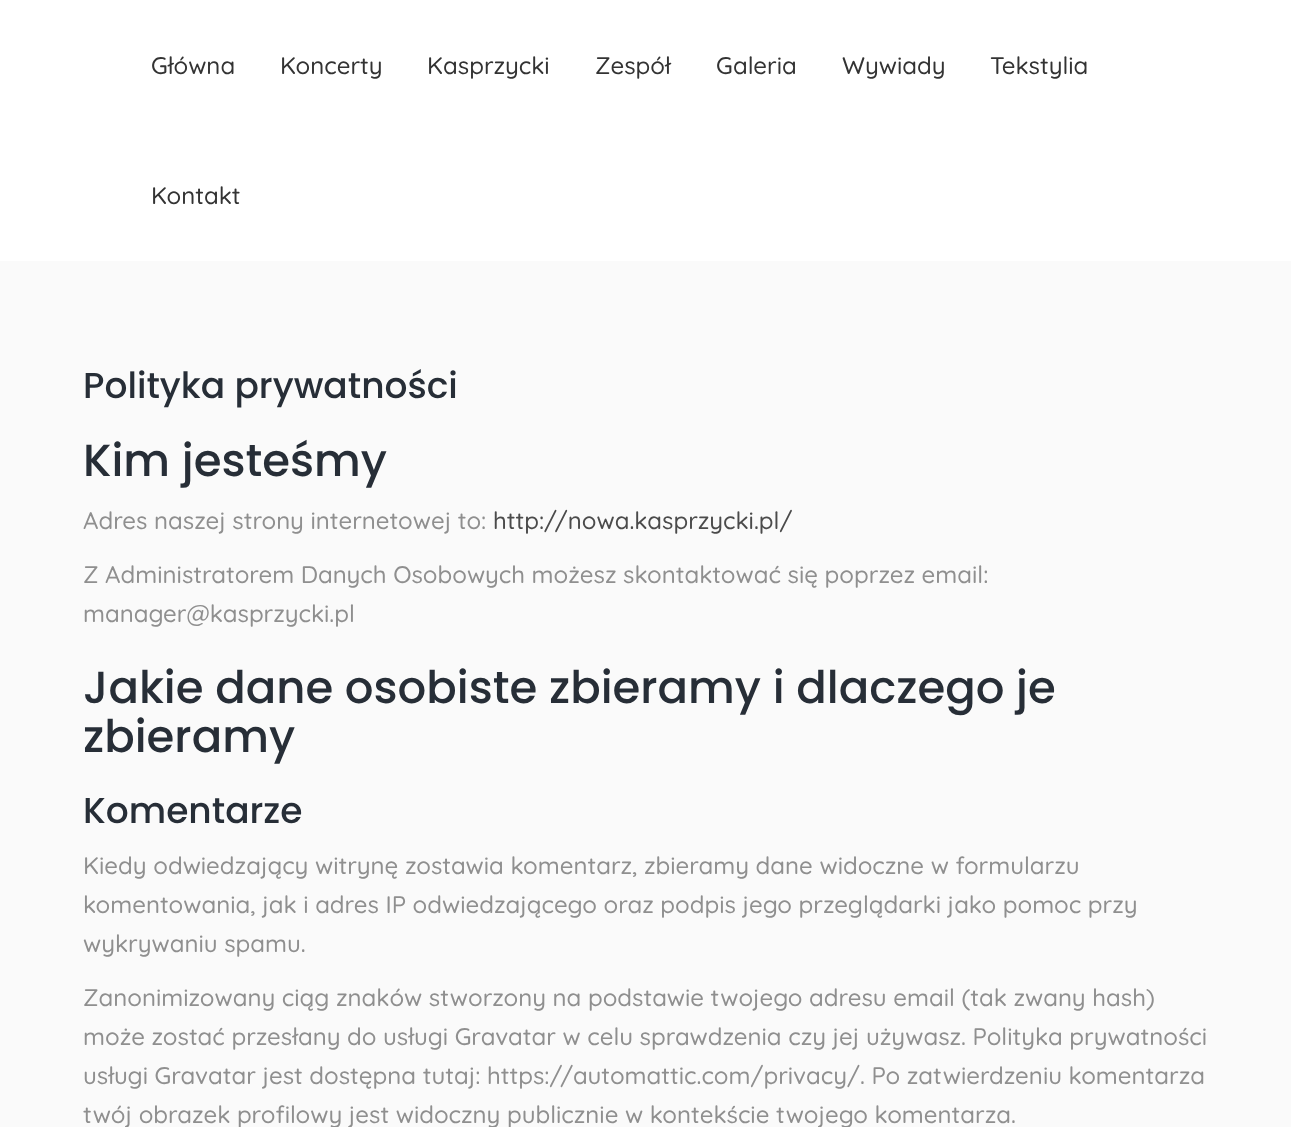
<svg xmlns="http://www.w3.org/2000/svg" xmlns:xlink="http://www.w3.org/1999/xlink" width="1291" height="1127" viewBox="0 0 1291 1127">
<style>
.cls-1{font:500 24px Quicksand;fill:#333333}
.cls-2{font:500 36px Poppins;fill:#272e37}
.cls-3{font:500 45px Poppins;fill:#272e37}
.cls-4{font:500 24px Quicksand;fill:#8f8f8f}
.cls-5{font:500 24px Quicksand;fill:#4b4b4b}
</style>
<rect width="100%" height="100%" fill="#ffffff"/>
<rect fill="#fafafa" x="0" y="261" width="1291" height="866"/>
<text class="cls-1" x="151" y="74">Główna</text>
<text class="cls-1" x="280" y="74">Koncerty</text>
<text class="cls-1" x="427" y="74">Kasprzycki</text>
<text class="cls-1" x="595" y="74">Zespół</text>
<text class="cls-1" x="716" y="74">Galeria</text>
<text class="cls-1" x="842" y="74">Wywiady</text>
<text class="cls-1" x="990" y="74">Tekstylia</text>
<text class="cls-1" x="151" y="204">Kontakt</text>
<text class="cls-2" x="83" y="398">Polityka prywatności</text>
<text class="cls-3" x="83" y="476">Kim jesteśmy</text>
<text class="cls-4" x="83" y="529">Adres naszej strony internetowej to:</text>
<text class="cls-5" x="493" y="529">http://nowa.kasprzycki.pl/</text>
<text class="cls-4"><tspan x="83" y="583">Z Administratorem Danych Osobowych możesz skontaktować się poprzez email:</tspan><tspan x="83" y="622">manager@kasprzycki.pl</tspan></text>
<text class="cls-3"><tspan x="83" y="703">Jakie dane osobiste zbieramy i dlaczego je</tspan><tspan x="83" y="752">zbieramy</tspan></text>
<text class="cls-2" x="83" y="823">Komentarze</text>
<text class="cls-4"><tspan x="83" y="874">Kiedy odwiedzający witrynę zostawia komentarz, zbieramy dane widoczne w formularzu</tspan><tspan x="83" y="913">komentowania, jak i adres IP odwiedzającego oraz podpis jego przeglądarki jako pomoc przy</tspan><tspan x="83" y="952">wykrywaniu spamu.</tspan></text>
<text class="cls-4"><tspan x="83" y="1006">Zanonimizowany ciąg znaków stworzony na podstawie twojego adresu email (tak zwany hash)</tspan><tspan x="83" y="1045">może zostać przesłany do usługi Gravatar w celu sprawdzenia czy jej używasz. Polityka prywatności</tspan><tspan x="83" y="1084">usługi Gravatar jest dostępna tutaj: https://automattic.com/privacy/. Po zatwierdzeniu komentarza</tspan><tspan x="83" y="1123">twój obrazek profilowy jest widoczny publicznie w kontekście twojego komentarza.</tspan></text>
</svg>
